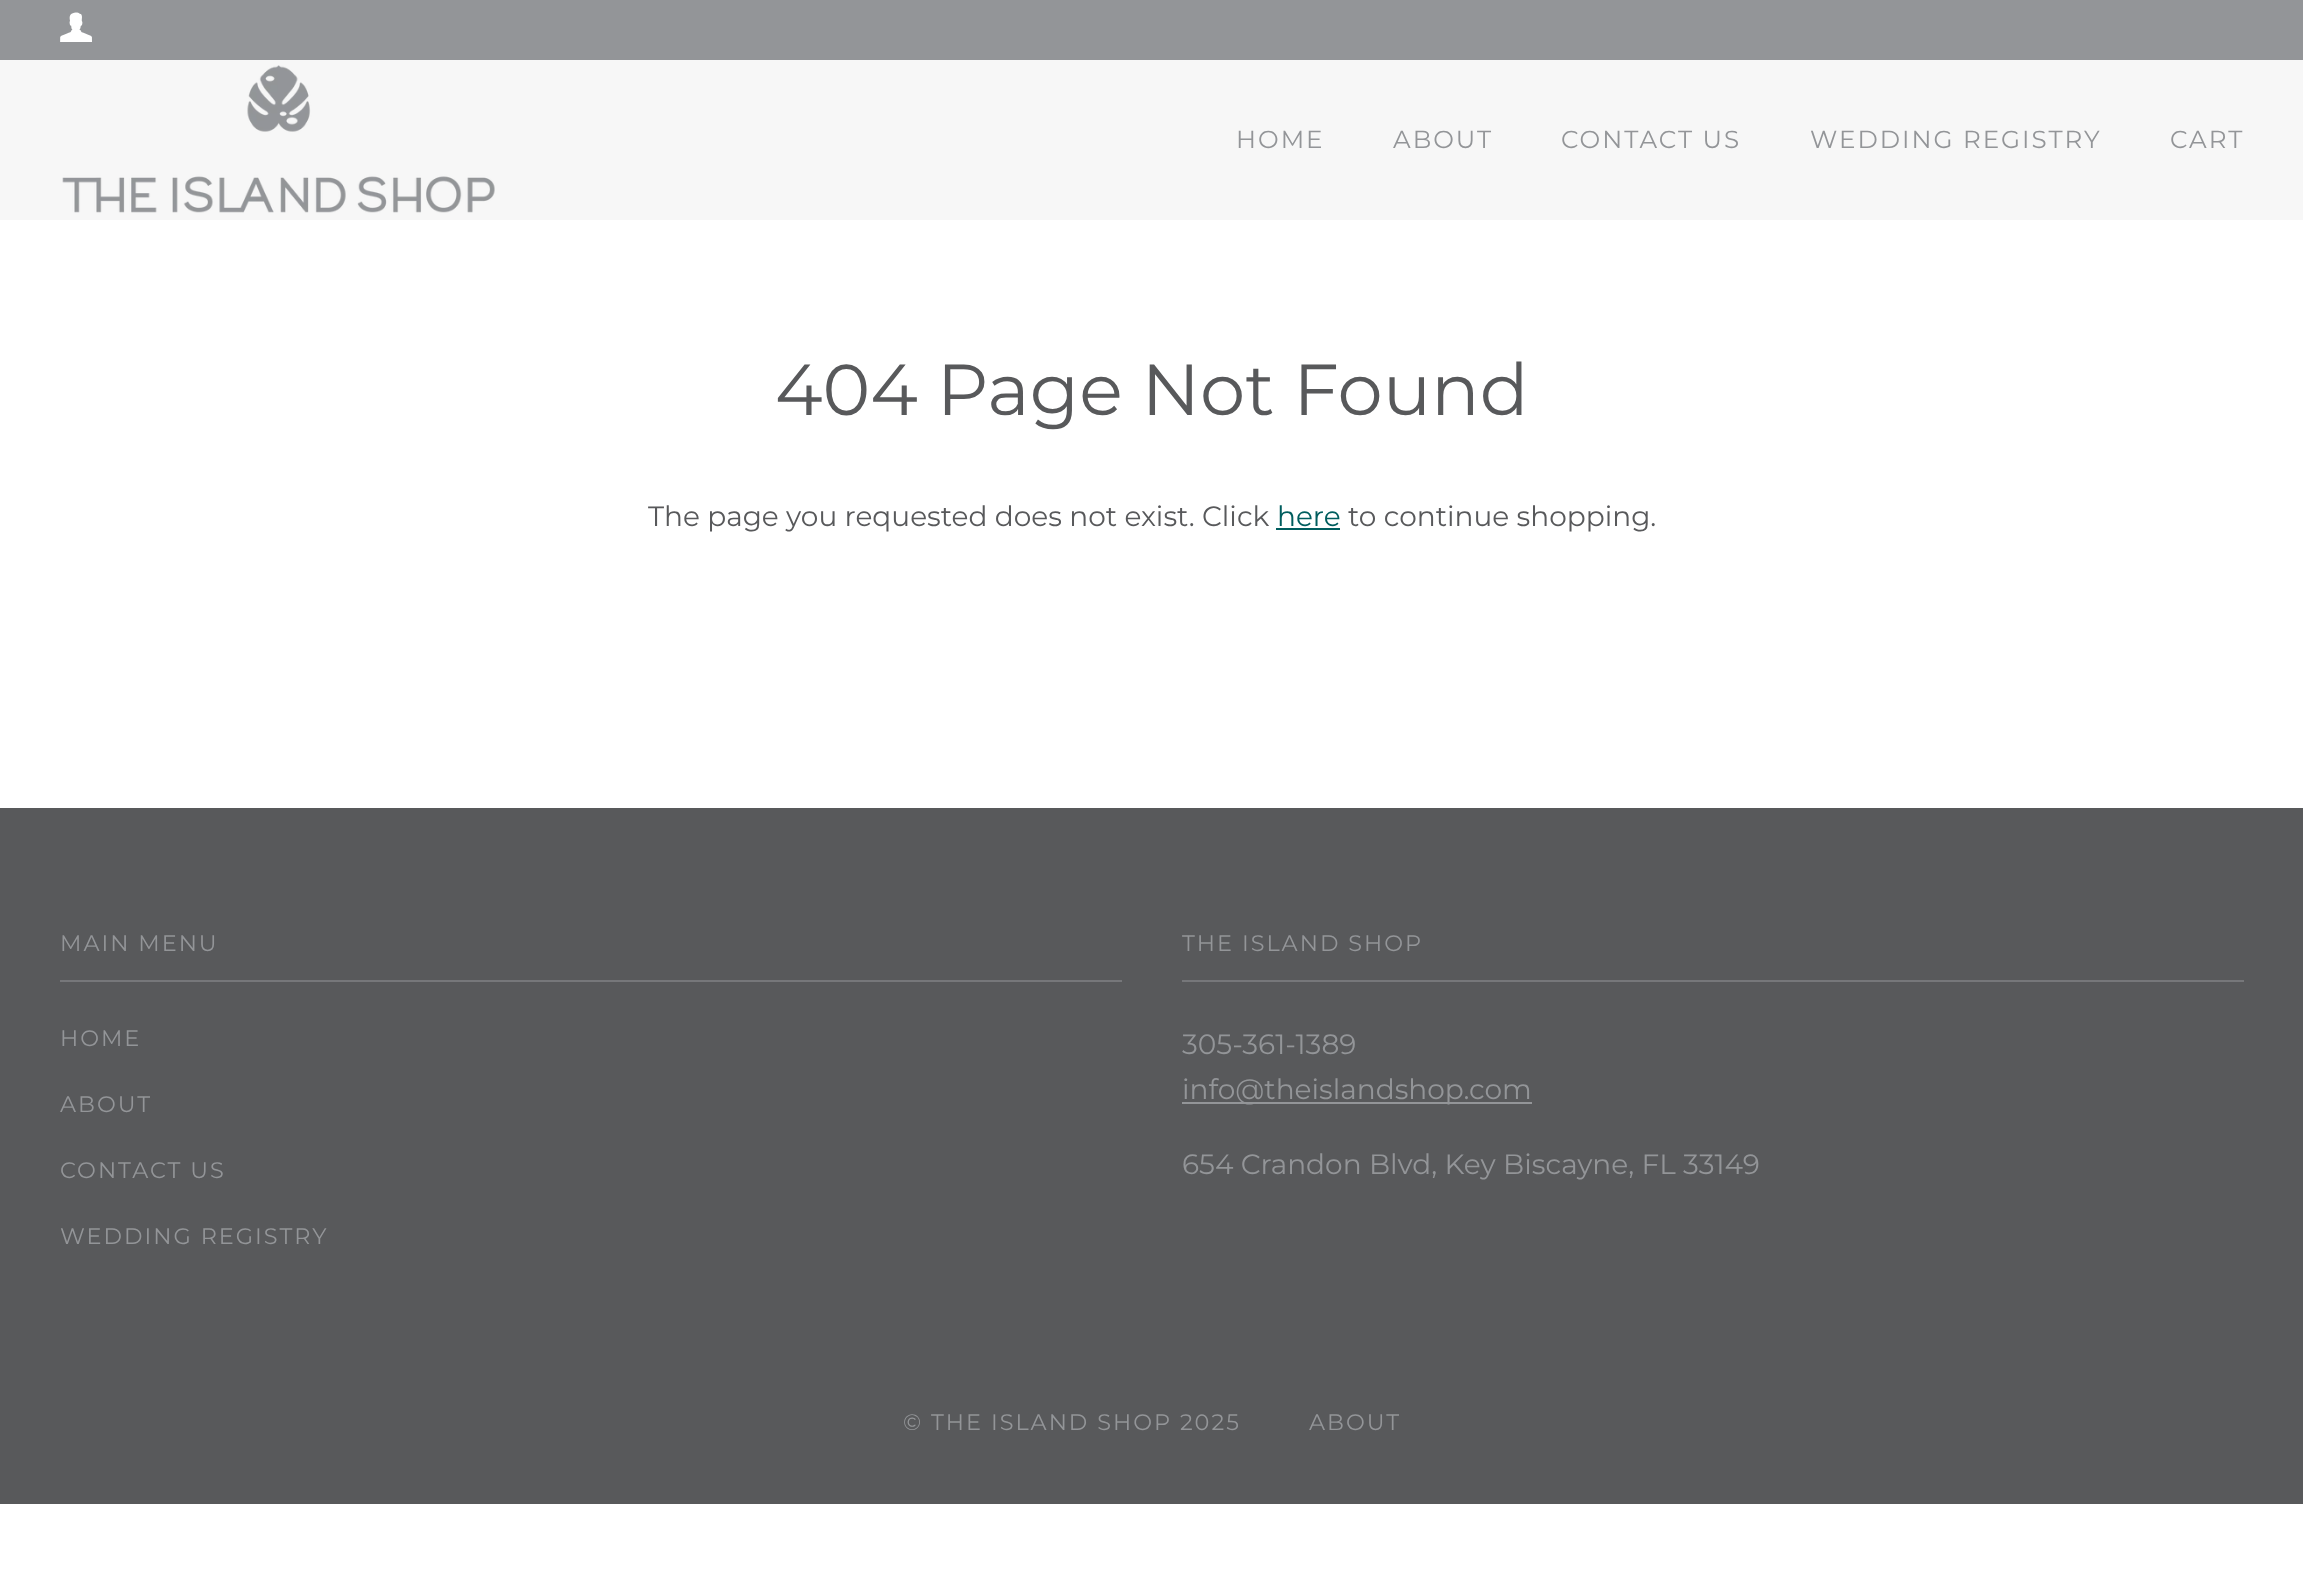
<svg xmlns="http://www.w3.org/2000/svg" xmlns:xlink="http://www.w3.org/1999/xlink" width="2303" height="1586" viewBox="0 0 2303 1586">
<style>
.cls-1{font:24.6px Montserrat;letter-spacing:2px;fill:#939598}
.cls-2{font:72px Montserrat;fill:#58595b}
.cls-3{font:28px Montserrat;fill:#58595b}
.cls-4{font:28px Montserrat;fill:#005d5e}
.cls-5{font:22.4px Montserrat;letter-spacing:2px;fill:#939598}
.cls-6{font:28px Montserrat;fill:#939598}
</style>
<rect width="100%" height="100%" fill="#ffffff"/>
<rect fill="#939598" x="0" y="0" width="2303" height="60"/>
<image xlink:href="image0.png" x="60" y="12" width="32" height="30"/>
<rect fill="#f7f7f7" x="0" y="60" width="2303" height="160"/>
<image xlink:href="image1.png" x="62" y="65" width="433" height="148"/>
<rect fill="#005d5e" x="1276" y="528" width="64" height="2"/>
<rect fill="#58595b" x="0" y="808" width="2303" height="696"/>
<rect fill="#76777a" x="60" y="980" width="1062" height="2"/>
<rect fill="#76777a" x="1182" y="980" width="1062" height="2"/>
<rect fill="#939598" x="1182" y="1102" width="350" height="2"/>
<text class="cls-1" x="1236" y="148">HOME</text>
<text class="cls-1" x="1393" y="148">ABOUT</text>
<text class="cls-1" x="1561" y="148">CONTACT US</text>
<text class="cls-1" x="1810" y="148">WEDDING REGISTRY</text>
<text class="cls-1" x="2170" y="148">CART</text>
<text class="cls-2" x="775" y="415">404 Page Not Found</text>
<text class="cls-3" x="648" y="526">The page you requested does not exist. Click</text>
<text class="cls-4" x="1277" y="526">here</text>
<text class="cls-3" x="1348" y="526">to continue shopping.</text>
<text class="cls-5" x="60" y="951">MAIN MENU</text>
<text class="cls-5" x="60" y="1046">HOME</text>
<text class="cls-5" x="60" y="1112">ABOUT</text>
<text class="cls-5" x="60" y="1178">CONTACT US</text>
<text class="cls-5" x="60" y="1244">WEDDING REGISTRY</text>
<text class="cls-5" x="1182" y="951">THE ISLAND SHOP</text>
<text class="cls-6"><tspan x="1182" y="1054">305-361-1389</tspan><tspan x="1182" y="1099">info@theislandshop.com</tspan></text>
<text class="cls-6" x="1182" y="1174">654 Crandon Blvd, Key Biscayne, FL 33149</text>
<text class="cls-5" x="903" y="1430">© THE ISLAND SHOP 2025</text>
<text class="cls-5" x="1309" y="1430">ABOUT</text>
</svg>
